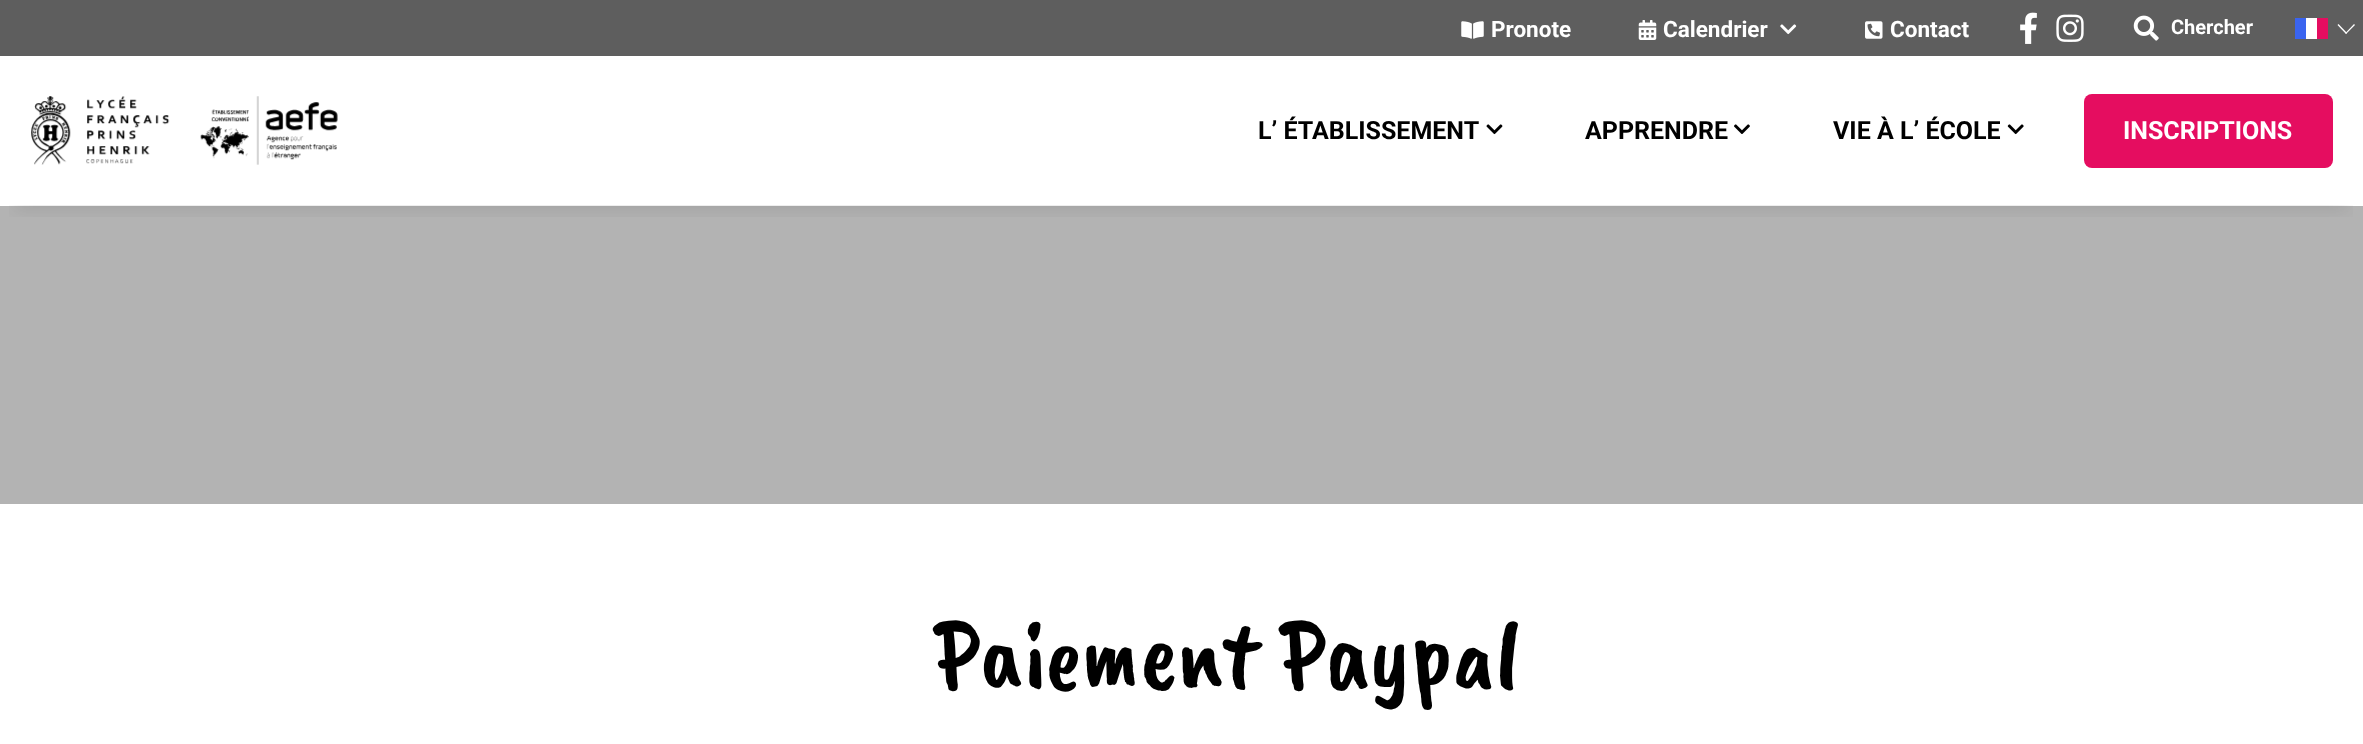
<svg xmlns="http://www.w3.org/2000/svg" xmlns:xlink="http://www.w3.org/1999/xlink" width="2363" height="744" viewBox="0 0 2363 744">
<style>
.cls-1{font:bold 22.5px Roboto;fill:#ffffff}
.cls-2{font:bold 20px Roboto;fill:#ffffff}
.cls-3{font:bold 25px Roboto;fill:#000000}
.cls-4{font:bold 25px Roboto;fill:#ffffff}
.cls-5{font:100px Caveat Brush;fill:#000000}
</style>
<defs>
<clipPath id="clip1"><rect x="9" y="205" width="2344" height="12"/></clipPath>
</defs>
<rect width="100%" height="100%" fill="#ffffff"/>
<rect fill="#5e5e5e" x="0" y="0" width="2363" height="56"/>
<image xlink:href="image0.png" x="1461" y="21" width="23" height="18"/>
<image xlink:href="image1.png" x="1638" y="20" width="19" height="20"/>
<image xlink:href="image2.png" x="1780" y="24" width="17" height="11"/>
<image xlink:href="image3.png" x="1865" y="21" width="18" height="18"/>
<image xlink:href="image4.png" x="2020" y="12" width="17" height="32"/>
<image xlink:href="image5.png" x="2056" y="14" width="28" height="28"/>
<image xlink:href="image6.png" x="2133" y="15" width="26" height="26"/>
<rect fill="#3a64ef" x="2295" y="18" width="11" height="21"/>
<rect fill="#ffffff" x="2306" y="18" width="11" height="21"/>
<rect fill="#e50d60" x="2317" y="18" width="11" height="21"/>
<path fill="#ffffff" d="M2346 34L2337.5 25L2338.5 24L2347 33Z"/>
<path fill="#ffffff" d="M2346 34L2345.5 33L2354 24L2355 25Z"/>
<rect fill="#b3b3b3" x="0" y="206" width="2363" height="298"/>
<g clip-path="url(#clip1)">
<rect fill="#000000" fill-opacity="0.1" filter="blur(9.5px)" x="14" y="90" width="2334" height="119"/>
</g>
<image xlink:href="image7.png" x="31" y="96" width="139" height="69"/>
<image xlink:href="image8.png" x="200" y="96" width="138" height="69"/>
<image xlink:href="image9.png" x="1486" y="124" width="17" height="11"/>
<image xlink:href="image10.png" x="1734" y="124" width="16" height="10"/>
<image xlink:href="image11.png" x="2007" y="124" width="17" height="11"/>
<rect fill="#e50d60" x="2084" y="94" width="249" height="74" rx="8"/>
<text class="cls-1" x="1491" y="37">Pronote</text>
<text class="cls-1" x="1663" y="37">Calendrier</text>
<text class="cls-1" x="1890" y="37">Contact</text>
<text class="cls-2" x="2171" y="34">Chercher</text>
<text class="cls-3" x="1258" y="139">L’ ÉTABLISSEMENT</text>
<text class="cls-3" x="1585" y="139">APPRENDRE</text>
<text class="cls-3" x="1833" y="139">VIE À L’ ÉCOLE</text>
<text class="cls-4" x="2123" y="139">INSCRIPTIONS</text>
<text class="cls-5" x="933" y="687">Paiement Paypal</text>
</svg>
